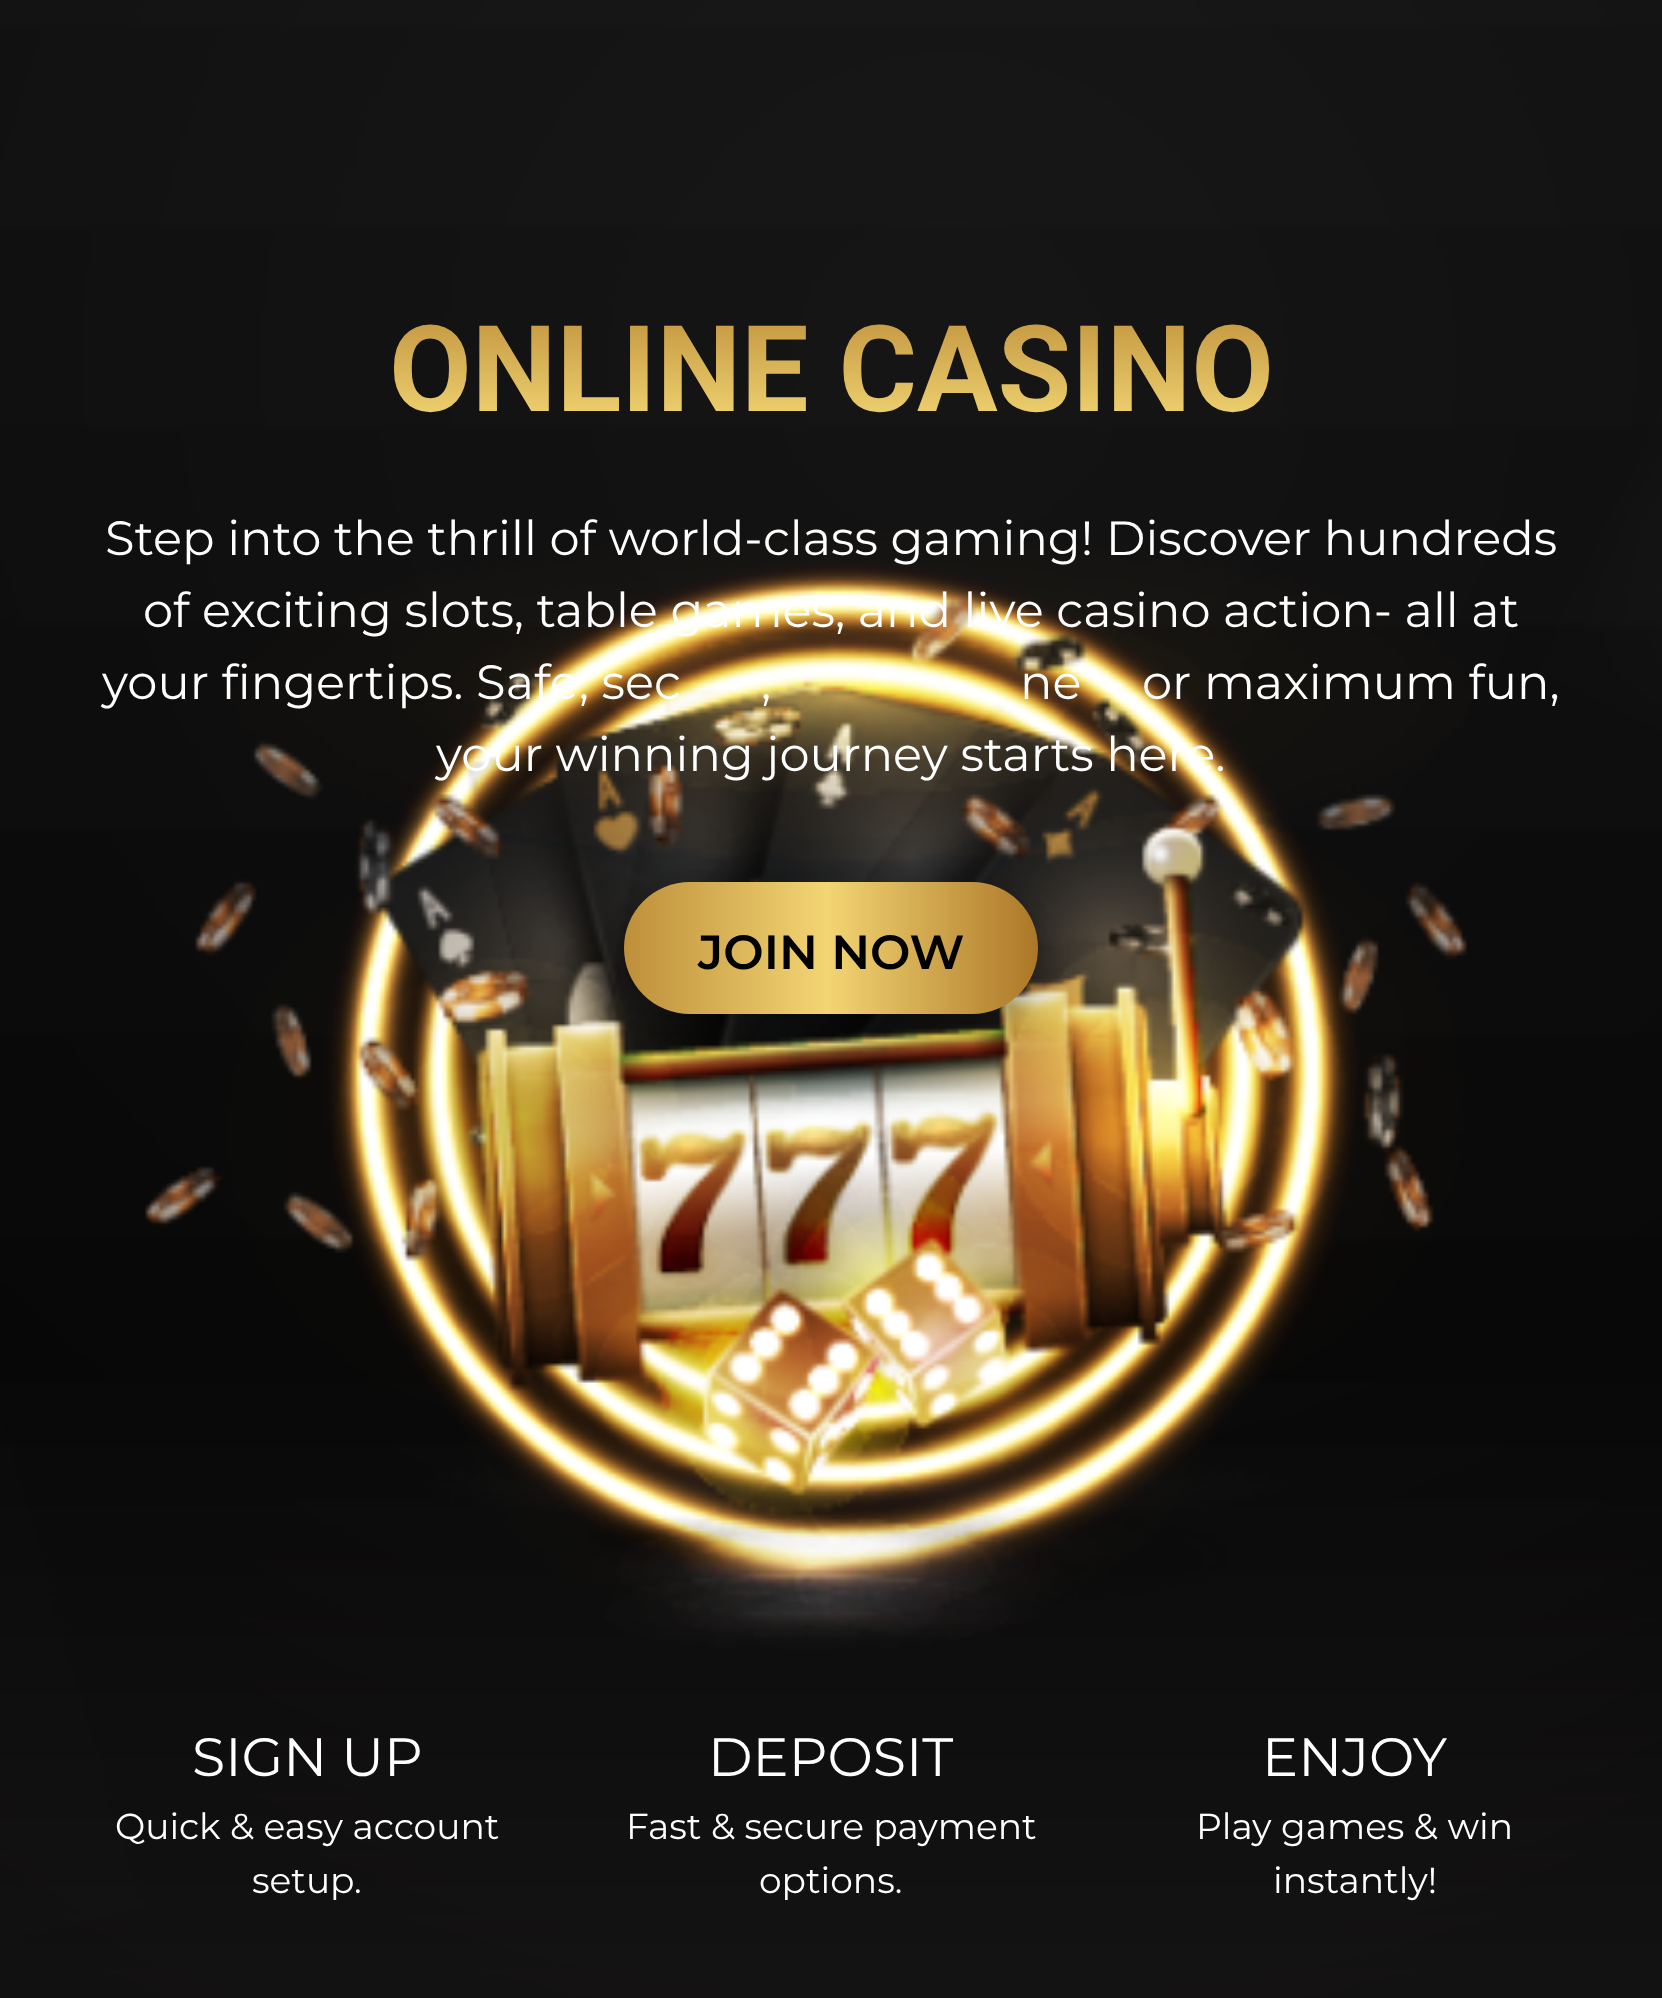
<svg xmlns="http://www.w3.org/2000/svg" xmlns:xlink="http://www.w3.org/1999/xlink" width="1662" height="1998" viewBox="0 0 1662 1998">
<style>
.cls-1{font:bold 120px Roboto;fill:url(#g1)}
.cls-2{font:48px Montserrat;fill:#ffffff}
.cls-3{font:600 48px Montserrat;fill:#000000}
.cls-4{font:54px Montserrat;fill:#ffffff}
.cls-5{font:36px Montserrat;fill:#ffffff}
</style>
<defs>
<linearGradient id="g1" gradientUnits="userSpaceOnUse" x1="831" y1="300" x2="831" y2="444"><stop offset="0" stop-color="#be8f3a"/><stop offset="1" stop-color="#f8df7b"/></linearGradient>
<linearGradient id="g2" gradientUnits="userSpaceOnUse" x1="624" y1="948" x2="1038" y2="948"><stop offset="0" stop-color="#be8f3a"/><stop offset="0.49" stop-color="#f3d573"/><stop offset="1" stop-color="#ac7728"/></linearGradient>
</defs>
<rect width="100%" height="100%" fill="#ffffff"/>
<image xlink:href="image0.png" x="0" y="0" width="1662" height="1998"/>
<rect fill="#000000" fill-opacity="0.19" filter="blur(30px)" x="624" y="900" width="414" height="132" rx="66"/>
<rect fill="#000000" fill-opacity="0.2" filter="blur(12px)" x="624" y="894" width="414" height="132" rx="66"/>
<rect fill="url(#g2)" x="624" y="882" width="414" height="132" rx="66"/>
<text class="cls-1" x="389" y="411">ONLINE CASINO</text>
<text class="cls-2" x="105" y="555">Step into the thrill of world-class gaming! Discover hundreds</text>
<text class="cls-2" x="143" y="627">of exciting slots, table games, and live casino action- all at</text>
<text class="cls-2" x="102" y="699">your fingertips. Safe, sec</text>
<text class="cls-2" x="761" y="699">,</text>
<text class="cls-2" x="1020" y="699">ne</text>
<text class="cls-2" x="1142" y="699">or maximum fun,</text>
<text class="cls-2" x="436" y="771">your winning journey starts here.</text>
<text class="cls-3" x="698" y="969">JOIN NOW</text>
<text class="cls-4" x="192" y="1776">SIGN UP</text>
<text class="cls-5" x="115" y="1839">Quick &amp; easy account</text>
<text class="cls-5" x="252" y="1893">setup.</text>
<text class="cls-4" x="708" y="1776">DEPOSIT</text>
<text class="cls-5" x="626" y="1839">Fast &amp; secure payment</text>
<text class="cls-5" x="759" y="1893">options.</text>
<text class="cls-4" x="1262" y="1776">ENJOY</text>
<text class="cls-5" x="1196" y="1839">Play games &amp; win</text>
<text class="cls-5" x="1273" y="1893">instantly!</text>
</svg>
